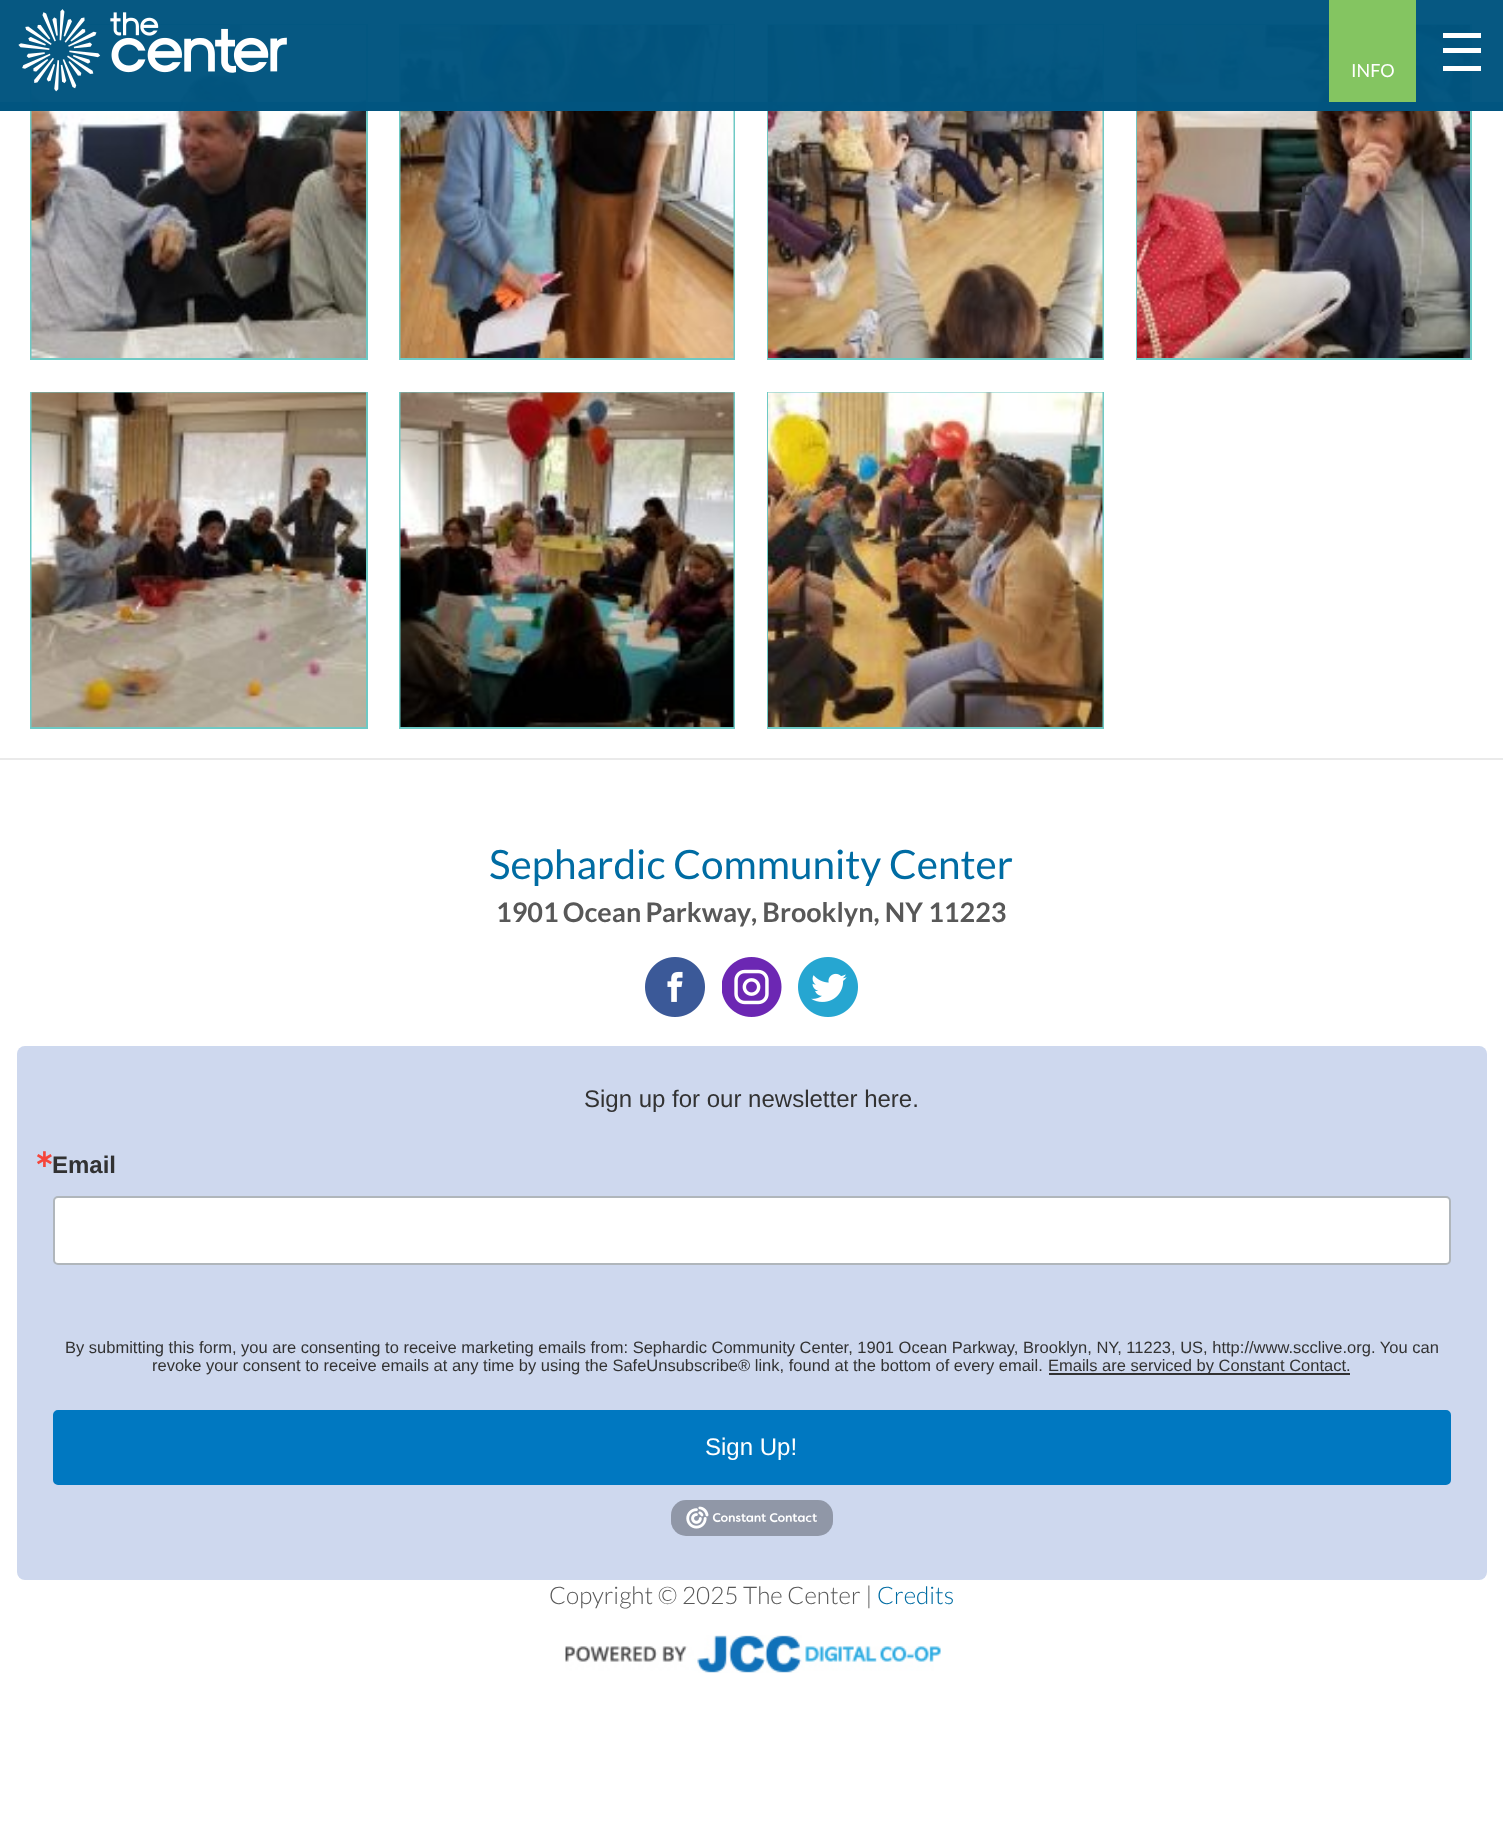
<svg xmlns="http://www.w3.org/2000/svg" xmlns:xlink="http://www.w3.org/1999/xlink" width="1503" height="1833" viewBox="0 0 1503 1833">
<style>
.cls-1{font:18px Lato;fill:#ffffff}
.cls-2{font:bold 30px Lato;fill:#765c3f}
.cls-3{font:bold 30px Lato;fill:#3d4047}
.cls-4{font:40.5px Lato;fill:#006ca3}
.cls-5{font:bold 27px Lato;fill:#585858}
.cls-6{font:24px Liberation Sans;fill:#323232}
.cls-7{font:bold 24px DejaVu Sans;fill:#f5463b}
.cls-8{font:bold 24px Liberation Sans;fill:#323232}
.cls-9{font:16.5px Liberation Sans;fill:#323232}
.cls-10{font:24px Liberation Sans;fill:#ffffff}
.cls-11{font:300 24.25px Lato;fill:#585858}
.cls-12{font:300 24.25px Lato;fill:#006ca3}
</style>
<rect width="100%" height="100%" fill="#ffffff"/>
<rect fill="none" stroke="#6ec9c4" stroke-width="2" x="31" y="25" width="336" height="334"/>
<image xlink:href="image1.png" x="31" y="25" width="335" height="333"/>
<rect fill="none" stroke="#6ec9c4" stroke-width="2" x="400" y="25" width="334" height="334"/>
<image xlink:href="image2.png" x="400" y="25" width="334" height="333"/>
<rect fill="none" stroke="#6ec9c4" stroke-width="2" x="768" y="25" width="335" height="334"/>
<image xlink:href="image3.png" x="768" y="25" width="335" height="333"/>
<rect fill="none" stroke="#6ec9c4" stroke-width="2" x="1137" y="25" width="334" height="334"/>
<image xlink:href="image4.png" x="1137" y="25" width="333" height="333"/>
<rect fill="#015580" fill-opacity="0.98" x="0" y="0" width="1503" height="111"/>
<rect fill="#015580" fill-opacity="0.98" x="0" y="102" width="1503" height="9"/>
<image xlink:href="image0.png" x="18" y="9" width="269" height="83"/>
<rect fill="#84c561" x="1329" y="0" width="87" height="102"/>
<rect fill="#ffffff" x="1443" y="33" width="38" height="5"/>
<rect fill="#ffffff" x="1443" y="48" width="38" height="5"/>
<rect fill="#ffffff" x="1443" y="66" width="38" height="5"/>
<rect fill="none" stroke="#6ec9c4" stroke-width="2" x="31" y="393" width="336" height="335"/>
<image xlink:href="image5.png" x="31" y="392" width="335" height="335"/>
<rect fill="none" stroke="#6ec9c4" stroke-width="2" x="400" y="393" width="334" height="335"/>
<image xlink:href="image6.png" x="400" y="392" width="334" height="335"/>
<rect fill="none" stroke="#6ec9c4" stroke-width="2" x="768" y="393" width="335" height="335"/>
<image xlink:href="image7.png" x="768" y="392" width="335" height="335"/>
<rect fill="#eaeaea" x="0" y="758" width="1503" height="2"/>
<image xlink:href="image8.png" x="645" y="957" width="60" height="60"/>
<image xlink:href="image9.png" x="722" y="957" width="60" height="60"/>
<image xlink:href="image10.png" x="798" y="957" width="60" height="60"/>
<rect fill="#ced8ee" x="17" y="1046" width="1470" height="534" rx="8"/>
<rect fill="#ffffff" stroke="#b0b6bb" stroke-width="2" x="54" y="1197" width="1396" height="67" rx="4"/>
<rect fill="#323232" x="1049" y="1373" width="301" height="2"/>
<rect fill="#0078c1" stroke="#0078c1" stroke-width="2" x="54" y="1411" width="1396" height="73" rx="4"/>
<rect fill="#9097a7" x="671" y="1500" width="162" height="36" rx="15"/>
<image xlink:href="image11.png" x="686" y="1506" width="131" height="23"/>
<image xlink:href="image12.png" x="565" y="1635" width="376" height="38"/>
<text class="cls-1" x="1351" y="77">INFO</text>
<text class="cls-2" x="927" y="204">+</text>
<text class="cls-3" x="1295" y="204">+</text>
<text class="cls-4" x="489" y="879">Sephardic Community Center</text>
<text class="cls-5" x="496" y="922" word-spacing="-1">1901 Ocean Parkway</text>
<text class="cls-5" x="751" y="922">, Brooklyn, NY 11223</text>
<text class="cls-6" x="584" y="1107">Sign up for our newsletter here.</text>
<text class="cls-7" x="34" y="1167">∗</text>
<text class="cls-8" x="52" y="1173">Email</text>
<text class="cls-9" x="65" y="1353">By submitting this form, you are consenting to receive marketing emails from: Sephardic Community Center, 1901 Ocean Parkway, Brooklyn, NY, 11223, US, http://www.scclive.org. You can</text>
<text class="cls-9" x="152" y="1371">revoke your consent to receive emails at any time by using the SafeUnsubscribe® link, found at the bottom of every email.</text>
<text class="cls-9" x="1048" y="1371">Emails are serviced by Constant Contact.</text>
<text class="cls-10" x="705" y="1455">Sign Up!</text>
<text class="cls-11" x="549" y="1604">Copyright © 2025 The Center |</text>
<text class="cls-12" x="877" y="1604">Credits</text>
</svg>
